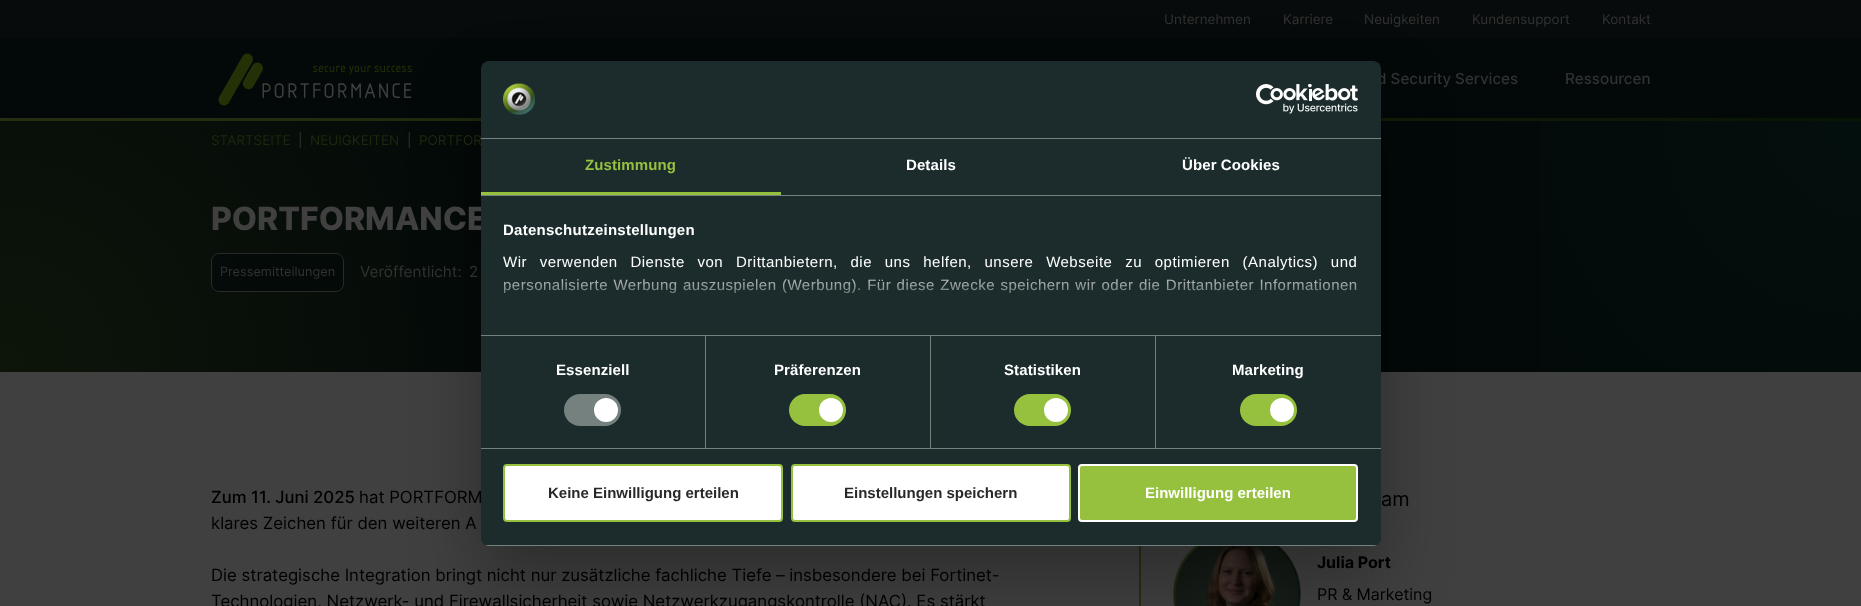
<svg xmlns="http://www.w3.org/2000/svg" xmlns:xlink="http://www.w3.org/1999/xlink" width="1861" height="606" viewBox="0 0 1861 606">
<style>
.cls-1{font:13.5px Inter;fill:#313332}
.cls-2{font:500 15.25px Inter;fill:#313332}
.cls-3{font:13.5px Inter;fill:#1e280e}
.cls-4{font:800 32px Inter;fill:#404040}
.cls-5{font:12.75px Inter;fill:#313332}
.cls-6{font:15.25px Inter;fill:#313332}
.cls-7{font:500 16.8px Inter;fill:#000000}
.cls-8{font:16.8px Inter;fill:#000000}
.cls-9{font:20px Inter;fill:#000000}
.cls-10{font:bold 16px Inter;fill:#000000}
.cls-11{font:16px Inter;fill:#000000}
.cls-12{font:bold 15px Liberation Sans;letter-spacing:0.1px;fill:#96c13f}
.cls-13{font:bold 15px Liberation Sans;letter-spacing:0.1px;fill:#ffffff}
.cls-14{font:bold 15px Liberation Sans;letter-spacing:0.25px;fill:#ffffff}
.cls-15{font:15px Liberation Sans;letter-spacing:0.5px;fill:#ffffff}
.cls-16{font:bold 15px Liberation Sans;fill:#292929}
.cls-17{font:bold 15px Liberation Sans;fill:#ffffff}
</style>
<defs>
<linearGradient id="g1" gradientUnits="userSpaceOnUse" x1="0" y1="120" x2="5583" y2="119"><stop offset="0" stop-color="#263010"/><stop offset="0.33" stop-color="#091504"/><stop offset="0.67" stop-color="#041b1b"/><stop offset="1" stop-color="#263010"/></linearGradient>
<radialGradient id="g2" gradientUnits="userSpaceOnUse" cx="0" cy="372" r="1878"><stop offset="0" stop-color="#0d150a"/><stop offset="0.3" stop-color="#030908"/></radialGradient>
<radialGradient id="g3" gradientUnits="userSpaceOnUse" cx="1861" cy="121" r="1878"><stop offset="0" stop-color="#041b1b" stop-opacity="0.3"/><stop offset="0.3" stop-color="#041b1b" stop-opacity="0"/></radialGradient>
<linearGradient id="g4" gradientUnits="userSpaceOnUse" x1="921" y1="335" x2="921" y2="266"><stop offset="0" stop-color="#1c2c2c"/><stop offset="0.5" stop-color="#1c2c2c" stop-opacity="0.8"/><stop offset="1" stop-color="#1c2c2c" stop-opacity="0"/></linearGradient>
<clipPath id="clip1"><rect x="481" y="61" width="900" height="485" rx="8"/></clipPath>
</defs>
<rect width="100%" height="100%" fill="#404040"/>
<rect fill="#070b0b" x="0" y="0" width="1861" height="38"/>
<rect fill="#030908" x="0" y="38" width="1861" height="80"/>
<image xlink:href="image0.png" x="218" y="53" width="194" height="53"/>
<rect fill="url(#g1)" x="0" y="118" width="1861" height="3"/>
<rect fill="url(#g2)" x="0" y="121" width="1861" height="251"/>
<rect fill="url(#g3)" x="1541" y="121" width="320" height="251"/>
<rect fill="#030908" fill-opacity="0.75" x="211" y="253" width="133" height="39" rx="8"/>
<rect fill="none" stroke="#363636" stroke-opacity="0.75" x="211.5" y="253.5" width="132" height="38" rx="7.5"/>
<rect fill="#263010" x="1139" y="546" width="2" height="60"/>
<image xlink:href="image1.png" x="1173" y="546" width="128" height="60"/>
<rect fill="#000000" fill-opacity="0.3" filter="blur(34px)" x="481" y="93" width="900" height="485" rx="8"/>
<text class="cls-1" x="1164" y="24">Unternehmen</text>
<text class="cls-1" x="1283" y="24">Karriere</text>
<text class="cls-1" x="1364" y="24">Neuigkeiten</text>
<text class="cls-1" x="1472" y="24">Kundensupport</text>
<text class="cls-1" x="1602" y="24">Kontakt</text>
<text class="cls-2" x="1377" y="84">d Security Services</text>
<text class="cls-2" x="1565" y="84">Ressourcen</text>
<text class="cls-3" x="211" y="145">STARTSEITE</text>
<text class="cls-1" x="298" y="145">|</text>
<text class="cls-3" x="310" y="145">NEUIGKEITEN</text>
<text class="cls-1" x="407" y="145">|</text>
<text class="cls-3" x="419" y="145">PORTFOR</text>
<text class="cls-4" x="211" y="230">PORTFORMANCE</text>
<text class="cls-5" x="220" y="276">Pressemitteilungen</text>
<text class="cls-6" x="360" y="277">Veröffentlicht:</text>
<text class="cls-6" x="469" y="277">2</text>
<text class="cls-7" x="211" y="503">Zum 11. Juni 2025</text>
<text class="cls-8" x="359" y="503">hat PORTFORM</text>
<text class="cls-8" x="211" y="529">klares Zeichen für den weiteren A</text>
<text class="cls-8"><tspan x="211" y="581">Die strategische Integration bringt nicht nur zusätzliche fachliche Tiefe – insbesondere bei Fortinet-</tspan><tspan x="211" y="607">Technologien, Netzwerk- und Firewallsicherheit sowie Netzwerkzugangskontrolle (NAC). Es stärkt</tspan></text>
<text class="cls-9" x="1381" y="506">am</text>
<text class="cls-10" x="1317" y="568">Julia Port</text>
<text class="cls-11" x="1317" y="600">PR &amp; Marketing</text>
<rect fill="#1c2c2c" x="481" y="61" width="900" height="485" rx="8"/>
<rect fill="#74817e" x="481" y="138" width="900" height="1"/>
<image xlink:href="image2.png" x="503" y="83" width="32" height="32"/>
<image xlink:href="image3.png" x="1256" y="84" width="102" height="30"/>
<rect fill="#74817e" x="481" y="195" width="900" height="1"/>
<rect fill="#96c13f" x="481" y="192" width="300" height="3"/>
<text class="cls-12" x="585" y="170">Zustimmung</text>
<text class="cls-13" x="906" y="170">Details</text>
<text class="cls-13" x="1182" y="170">Über Cookies</text>
<rect fill="#74817e" x="481" y="335" width="900" height="1"/>
<text class="cls-14" x="503" y="235">Datenschutzeinstellungen</text>
<text class="cls-15"><tspan x="503" y="267" word-spacing="8.1">Wir verwenden Dienste von Drittanbietern, die uns helfen, unsere Webseite zu optimieren (Analytics) und</tspan><tspan x="503" y="290" word-spacing="0.75">personalisierte Werbung auszuspielen (Werbung). Für diese Zwecke speichern wir oder die Drittanbieter Informationen</tspan></text>
<rect fill="url(#g4)" x="504" y="267" width="853" height="27"/>
<rect fill="#74817e" x="481" y="448" width="900" height="1"/>
<rect fill="#74817e" x="705" y="336" width="1" height="112"/>
<text class="cls-13" x="556" y="375">Essenziell</text>
<rect fill="#74817e" x="564" y="394" width="57" height="32" rx="16"/>
<circle fill="#ffffff" cx="606" cy="410" r="12"/>
<rect fill="#74817e" x="930" y="336" width="1" height="112"/>
<text class="cls-13" x="774" y="375">Präferenzen</text>
<rect fill="#96c13f" x="789" y="394" width="57" height="32" rx="16"/>
<circle fill="#ffffff" cx="831" cy="410" r="12"/>
<rect fill="#74817e" x="1155" y="336" width="1" height="112"/>
<text class="cls-13" x="1004" y="375">Statistiken</text>
<rect fill="#96c13f" x="1014" y="394" width="57" height="32" rx="16"/>
<circle fill="#ffffff" cx="1056" cy="410" r="12"/>
<text class="cls-13" x="1232" y="375">Marketing</text>
<rect fill="#96c13f" x="1240" y="394" width="57" height="32" rx="16"/>
<circle fill="#ffffff" cx="1282" cy="410" r="12"/>
<g clip-path="url(#clip1)">
<rect fill="#74817e" x="481" y="545" width="900" height="1"/>
</g>
<rect fill="#ffffff" stroke="#96c13f" stroke-width="2" x="504" y="465" width="278" height="56" rx="3"/>
<text class="cls-16" x="548" y="498">Keine Einwilligung erteilen</text>
<rect fill="#ffffff" stroke="#96c13f" stroke-width="2" x="792" y="465" width="278" height="56" rx="3"/>
<text class="cls-16" x="844" y="498">Einstellungen speichern</text>
<rect fill="#96c13f" stroke="#ffffff" stroke-width="2" x="1079" y="465" width="278" height="56" rx="3"/>
<text class="cls-17" x="1145" y="498">Einwilligung erteilen</text>
</svg>
